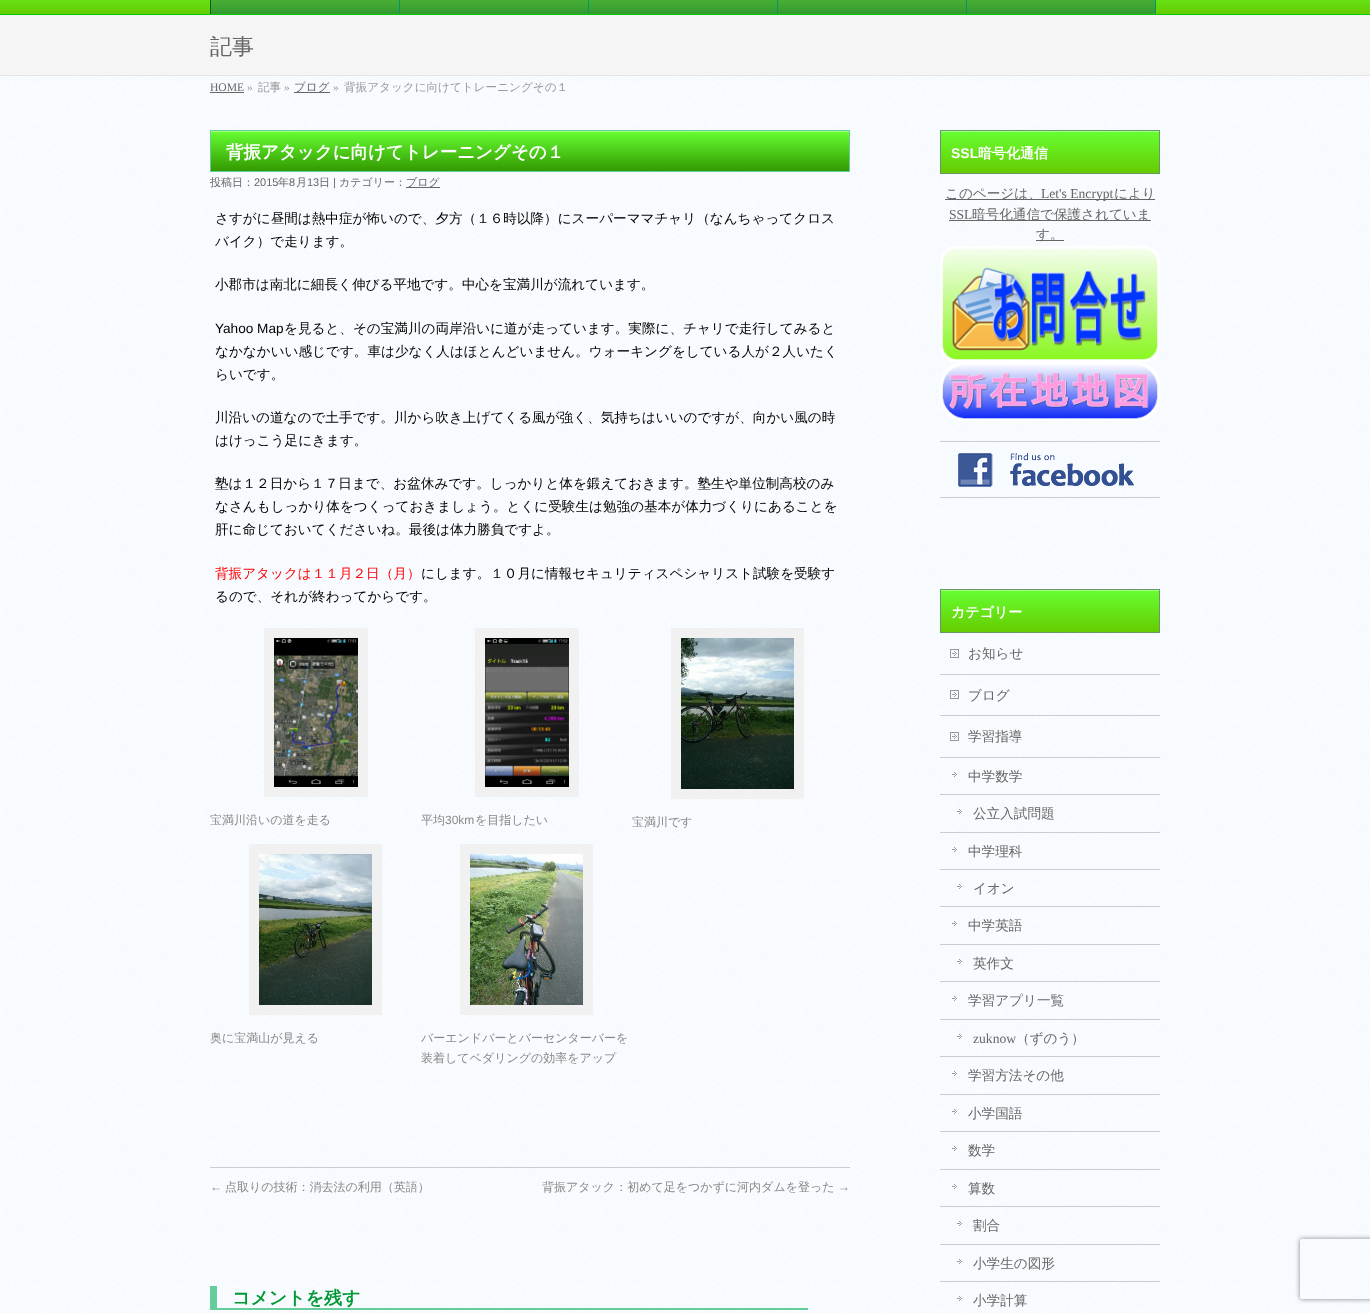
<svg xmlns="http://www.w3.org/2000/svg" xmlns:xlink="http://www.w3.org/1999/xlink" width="1370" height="1313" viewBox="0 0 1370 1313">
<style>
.cls-1{font:500 22px WenQuanYi Zen Hei;fill:#666666}
.cls-2{font:11.6px Liberation Serif;fill:#666666}
.cls-3{font:11.6px Liberation Serif;fill:#999999}
.cls-4{font:500 11.6px WenQuanYi Zen Hei;fill:#999999}
.cls-5{font:500 11.6px WenQuanYi Zen Hei;fill:#666666}
.cls-6{font:bold 17.5px WenQuanYi Zen Hei;fill:#ffffff}
.cls-7{font:500 11px WenQuanYi Zen Hei;fill:#666666}
.cls-8{font:11px Liberation Sans;fill:#666666}
.cls-9{font:500 13.6px WenQuanYi Zen Hei;fill:#000000}
.cls-10{font:13.6px Liberation Sans;fill:#000000}
.cls-11{font:500 13.6px WenQuanYi Zen Hei;fill:#ff0000}
.cls-12{font:500 12px WenQuanYi Zen Hei;fill:#888888}
.cls-13{font:12px Liberation Sans;fill:#888888}
.cls-14{font:bold 18px WenQuanYi Zen Hei;fill:#009933}
.cls-15{font:bold 14px Liberation Sans;fill:#ffffff}
.cls-16{font:bold 14px WenQuanYi Zen Hei;fill:#ffffff}
.cls-17{font:500 13.6px WenQuanYi Zen Hei;fill:#666666}
.cls-18{font:13.6px Liberation Serif;fill:#666666}
</style>
<defs>
<linearGradient id="g1" gradientUnits="userSpaceOnUse" x1="685" y1="-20" x2="685" y2="14"><stop offset="0" stop-color="#66ff33"/><stop offset="1" stop-color="#66cc00"/></linearGradient>
<linearGradient id="g2" gradientUnits="userSpaceOnUse" x1="306" y1="-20" x2="306" y2="14"><stop offset="0" stop-color="#66cc33"/><stop offset="1" stop-color="#339933"/></linearGradient>
<linearGradient id="g3" gradientUnits="userSpaceOnUse" x1="495" y1="-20" x2="495" y2="14"><stop offset="0" stop-color="#66cc33"/><stop offset="1" stop-color="#339933"/></linearGradient>
<linearGradient id="g4" gradientUnits="userSpaceOnUse" x1="684" y1="-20" x2="684" y2="14"><stop offset="0" stop-color="#66cc33"/><stop offset="1" stop-color="#339933"/></linearGradient>
<linearGradient id="g5" gradientUnits="userSpaceOnUse" x1="873" y1="-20" x2="873" y2="14"><stop offset="0" stop-color="#66cc33"/><stop offset="1" stop-color="#339933"/></linearGradient>
<linearGradient id="g6" gradientUnits="userSpaceOnUse" x1="1062" y1="-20" x2="1062" y2="14"><stop offset="0" stop-color="#66cc33"/><stop offset="1" stop-color="#339933"/></linearGradient>
<linearGradient id="g7" gradientUnits="userSpaceOnUse" x1="530" y1="131" x2="530" y2="171"><stop offset="0" stop-color="#66ff33"/><stop offset="1" stop-color="#339900"/></linearGradient>
<linearGradient id="g8" gradientUnits="userSpaceOnUse" x1="1050" y1="131" x2="1050" y2="173"><stop offset="0" stop-color="#66ff33"/><stop offset="1" stop-color="#66cc00"/></linearGradient>
<linearGradient id="g9" gradientUnits="userSpaceOnUse" x1="1050" y1="590" x2="1050" y2="632"><stop offset="0" stop-color="#66ff33"/><stop offset="1" stop-color="#66cc00"/></linearGradient>
<clipPath id="clip1"><path d="M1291 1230H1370V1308H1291ZM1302 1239H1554C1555 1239 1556 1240 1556 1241V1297C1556 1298 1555 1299 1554 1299H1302C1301 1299 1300 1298 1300 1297V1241C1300 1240 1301 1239 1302 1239Z" clip-rule="evenodd"/></clipPath>
</defs>
<rect width="100%" height="100%" fill="#ffffff"/>
<image xlink:href="image0.png" x="0" y="76" width="1370" height="1237"/>
<rect fill="url(#g1)" x="0" y="0" width="1370" height="14"/>
<rect fill="#00cc00" x="0" y="14" width="1370" height="1"/>
<rect fill="#006600" x="210" y="0" width="1" height="14"/>
<rect fill="url(#g2)" x="211" y="0" width="188" height="14"/>
<rect fill="#009966" x="399" y="0" width="1" height="14"/>
<rect fill="url(#g3)" x="400" y="0" width="188" height="14"/>
<rect fill="#009966" x="588" y="0" width="1" height="14"/>
<rect fill="url(#g4)" x="589" y="0" width="188" height="14"/>
<rect fill="#009966" x="777" y="0" width="1" height="14"/>
<rect fill="url(#g5)" x="778" y="0" width="188" height="14"/>
<rect fill="#009966" x="966" y="0" width="1" height="14"/>
<rect fill="url(#g6)" x="967" y="0" width="188" height="14"/>
<rect fill="#009966" x="1155" y="0" width="1" height="14"/>
<rect fill="#f5f5f5" x="0" y="15" width="1370" height="60"/>
<rect fill="#e5e5e5" x="0" y="75" width="1370" height="1"/>
<rect fill="#666666" x="210" y="92" width="34" height="1"/>
<rect fill="#666666" x="294" y="92" width="36" height="1"/>
<rect fill="url(#g7)" x="211" y="132" width="638" height="39"/>
<rect fill="#a3fe84" x="211" y="131" width="638" height="1"/>
<rect fill="none" stroke="#66cc99" x="210.5" y="130.5" width="639" height="41"/>
<rect fill="#666666" x="406" y="187" width="34" height="1"/>
<rect fill="none" stroke="#f1f1f1" stroke-width="10" x="269" y="633" width="94" height="159"/>
<image xlink:href="image1.png" x="274" y="638" width="84" height="149"/>
<rect fill="none" stroke="#f1f1f1" stroke-width="10" x="480" y="633" width="94" height="159"/>
<image xlink:href="image2.png" x="485" y="638" width="84" height="149"/>
<rect fill="none" stroke="#f1f1f1" stroke-width="10" x="676" y="633" width="123" height="161"/>
<image xlink:href="image3.png" x="681" y="638" width="113" height="151"/>
<rect fill="none" stroke="#f1f1f1" stroke-width="10" x="254" y="849" width="123" height="161"/>
<image xlink:href="image4.png" x="259" y="854" width="113" height="151"/>
<rect fill="none" stroke="#f1f1f1" stroke-width="10" x="465" y="849" width="123" height="161"/>
<image xlink:href="image5.png" x="470" y="854" width="113" height="151"/>
<rect fill="#cccccc" x="210" y="1167" width="640" height="1"/>
<rect fill="#66cc99" x="210" y="1308" width="598" height="2"/>
<rect fill="#66cc99" x="210" y="1286" width="7" height="24"/>
<rect fill="url(#g8)" x="941" y="132" width="218" height="41"/>
<rect fill="#a3fe84" x="941" y="131" width="218" height="1"/>
<rect fill="none" stroke="#669966" x="940.5" y="130.5" width="219" height="43"/>
<rect fill="#666666" x="945" y="199" width="210" height="1"/>
<rect fill="#666666" x="949" y="220" width="202" height="1"/>
<rect fill="#666666" x="1036" y="240" width="28" height="1"/>
<image xlink:href="image6.png" x="940" y="246" width="220" height="116"/>
<image xlink:href="image7.png" x="940" y="362" width="220" height="59"/>
<rect fill="#cccccc" x="940" y="441" width="220" height="1"/>
<rect fill="#cccccc" x="940" y="497" width="220" height="1"/>
<image xlink:href="image8.png" x="958" y="453" width="176" height="34"/>
<rect fill="url(#g9)" x="941" y="591" width="218" height="41"/>
<rect fill="#a3fe84" x="941" y="590" width="218" height="1"/>
<rect fill="none" stroke="#669966" x="940.5" y="589.5" width="219" height="43"/>
<rect fill="#cccccc" x="940" y="674" width="220" height="1"/>
<image xlink:href="image9.png" x="950" y="649" width="9" height="9"/>
<rect fill="#cccccc" x="940" y="715" width="220" height="1"/>
<image xlink:href="image10.png" x="950" y="690" width="9" height="9"/>
<image xlink:href="image11.png" x="950" y="732" width="9" height="9"/>
<rect fill="#cccccc" x="940" y="757" width="220" height="1"/>
<image xlink:href="image12.png" x="952" y="772" width="5" height="5"/>
<rect fill="#cccccc" x="940" y="794" width="220" height="1"/>
<image xlink:href="image13.png" x="957" y="809" width="5" height="5"/>
<rect fill="#cccccc" x="940" y="832" width="220" height="1"/>
<image xlink:href="image14.png" x="952" y="847" width="5" height="5"/>
<rect fill="#cccccc" x="940" y="869" width="220" height="1"/>
<image xlink:href="image15.png" x="957" y="884" width="5" height="5"/>
<rect fill="#cccccc" x="940" y="906" width="220" height="1"/>
<image xlink:href="image16.png" x="952" y="921" width="5" height="5"/>
<rect fill="#cccccc" x="940" y="944" width="220" height="1"/>
<image xlink:href="image17.png" x="957" y="959" width="5" height="5"/>
<rect fill="#cccccc" x="940" y="981" width="220" height="1"/>
<image xlink:href="image18.png" x="952" y="996" width="5" height="5"/>
<rect fill="#cccccc" x="940" y="1019" width="220" height="1"/>
<image xlink:href="image19.png" x="957" y="1034" width="5" height="5"/>
<rect fill="#cccccc" x="940" y="1056" width="220" height="1"/>
<image xlink:href="image20.png" x="952" y="1071" width="5" height="5"/>
<rect fill="#cccccc" x="940" y="1094" width="220" height="1"/>
<image xlink:href="image21.png" x="952" y="1109" width="5" height="5"/>
<rect fill="#cccccc" x="940" y="1131" width="220" height="1"/>
<image xlink:href="image22.png" x="952" y="1146" width="5" height="5"/>
<rect fill="#cccccc" x="940" y="1169" width="220" height="1"/>
<image xlink:href="image23.png" x="952" y="1184" width="5" height="5"/>
<rect fill="#cccccc" x="940" y="1206" width="220" height="1"/>
<image xlink:href="image24.png" x="957" y="1221" width="5" height="5"/>
<rect fill="#cccccc" x="940" y="1244" width="220" height="1"/>
<image xlink:href="image25.png" x="957" y="1259" width="5" height="5"/>
<rect fill="#cccccc" x="940" y="1281" width="220" height="1"/>
<image xlink:href="image26.png" x="957" y="1296" width="5" height="5"/>
<g clip-path="url(#clip1)">
<rect fill="#808080" filter="blur(2.5px)" x="1300" y="1239" width="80" height="60" rx="2"/>
</g>
<text class="cls-1" x="210" y="54">記事</text>
<text class="cls-2" x="210" y="91">HOME</text>
<text class="cls-3" x="247" y="91">»</text>
<text class="cls-4" x="258" y="91">記事</text>
<text class="cls-3" x="284" y="91">»</text>
<text class="cls-5" x="294" y="91">ブログ</text>
<text class="cls-3" x="333" y="91">»</text>
<text class="cls-4" x="344" y="91">背振アタックに向けてトレーニングその１</text>
<text class="cls-6" x="226" y="158">背振アタックに向けてトレーニングその１</text>
<text class="cls-7" x="210" y="186">投稿日：</text>
<text class="cls-8" x="254" y="186">2015</text>
<text class="cls-7" x="278" y="186">年</text>
<text class="cls-8" x="289" y="186">8</text>
<text class="cls-7" x="296" y="186">月</text>
<text class="cls-8" x="307" y="186">13</text>
<text class="cls-7" x="319" y="186">日</text>
<text class="cls-8" x="333" y="186">|</text>
<text class="cls-7" x="339" y="186">カテゴリー：</text>
<text class="cls-7" x="406" y="186">ブログ</text>
<text class="cls-9"><tspan x="215" y="223">さすがに昼間は熱中症が怖いので、夕方（１６時以降）にスーパーママチャリ（なんちゃってクロス</tspan><tspan x="215" y="246">バイク）で走ります。</tspan></text>
<text class="cls-9" x="215" y="289">小郡市は南北に細長く伸びる平地です。中心を宝満川が流れています。</text>
<text class="cls-10" x="215" y="333">Yahoo Map</text>
<text class="cls-9" x="284" y="333">を見ると、その宝満川の両岸沿いに道が走っています。実際に、チャリで走行してみると</text>
<text class="cls-9"><tspan x="215" y="356">なかなかいい感じです。車は少なく人はほとんどいません。ウォーキングをしている人が２人いたく</tspan><tspan x="215" y="379">らいです。</tspan></text>
<text class="cls-9"><tspan x="215" y="422">川沿いの道なので土手です。川から吹き上げてくる風が強く、気持ちはいいのですが、向かい風の時</tspan><tspan x="215" y="445">はけっこう足にきます。</tspan></text>
<text class="cls-9"><tspan x="215" y="488">塾は１２日から１７日まで、お盆休みです。しっかりと体を鍛えておきます。塾生や単位制高校のみ</tspan><tspan x="215" y="511">なさんもしっかり体をつくっておきましょう。とくに受験生は勉強の基本が体力づくりにあることを</tspan><tspan x="215" y="534">肝に命じておいてくださいね。最後は体力勝負ですよ。</tspan></text>
<text class="cls-11" x="215" y="578">背振アタックは１１月２日（月）</text>
<text class="cls-9" x="421" y="578">にします。１０月に情報セキュリティスペシャリスト試験を受験す</text>
<text class="cls-9" x="215" y="601">るので、それが終わってからです。</text>
<text class="cls-12" x="210" y="824">宝満川沿いの道を走る</text>
<text class="cls-12" x="421" y="824">平均</text>
<text class="cls-13" x="445" y="824">30km</text>
<text class="cls-12" x="475" y="824">を目指したい</text>
<text class="cls-12" x="632" y="826">宝満川です</text>
<text class="cls-12" x="210" y="1042">奥に宝満山が見える</text>
<text class="cls-12"><tspan x="421" y="1042">バーエンドバーとバーセンターバーを</tspan><tspan x="421" y="1062">装着してベダリングの効率をアップ</tspan></text>
<text class="cls-13" x="210" y="1191">←</text>
<text class="cls-12" x="225" y="1191">点取りの技術：消去法の利用（英語）</text>
<text class="cls-12" x="542" y="1191">背振アタック：初めて足をつかずに河内ダムを登った</text>
<text class="cls-13" x="838" y="1191">→</text>
<text class="cls-14" x="232" y="1304">コメントを残す</text>
<text class="cls-15" x="951" y="158">SSL</text>
<text class="cls-16" x="978" y="158">暗号化通信</text>
<text class="cls-17" x="945" y="198">このページは、</text>
<text class="cls-18" x="1041" y="198">Let's Encrypt</text>
<text class="cls-17" x="1114" y="198">により</text>
<text class="cls-18" x="949" y="219">SSL</text>
<text class="cls-17" x="972" y="219">暗号化通信で保護されていま</text>
<text class="cls-17" x="1036" y="239">す。</text>
<text class="cls-16" x="951" y="617">カテゴリー</text>
<text class="cls-17" x="968" y="658">お知らせ</text>
<text class="cls-17" x="968" y="700">ブログ</text>
<text class="cls-17" x="968" y="741">学習指導</text>
<text class="cls-17" x="968" y="781">中学数学</text>
<text class="cls-17" x="973" y="818">公立入試問題</text>
<text class="cls-17" x="968" y="856">中学理科</text>
<text class="cls-17" x="973" y="893">イオン</text>
<text class="cls-17" x="968" y="930">中学英語</text>
<text class="cls-17" x="973" y="968">英作文</text>
<text class="cls-17" x="968" y="1005">学習アプリ一覧</text>
<text class="cls-18" x="973" y="1043">zuknow</text>
<text class="cls-17" x="1016" y="1043">（ずのう）</text>
<text class="cls-17" x="968" y="1080">学習方法その他</text>
<text class="cls-17" x="968" y="1118">小学国語</text>
<text class="cls-17" x="968" y="1155">数学</text>
<text class="cls-17" x="968" y="1193">算数</text>
<text class="cls-17" x="973" y="1230">割合</text>
<text class="cls-17" x="973" y="1268">小学生の図形</text>
<text class="cls-17" x="973" y="1305">小学計算</text>
</svg>
